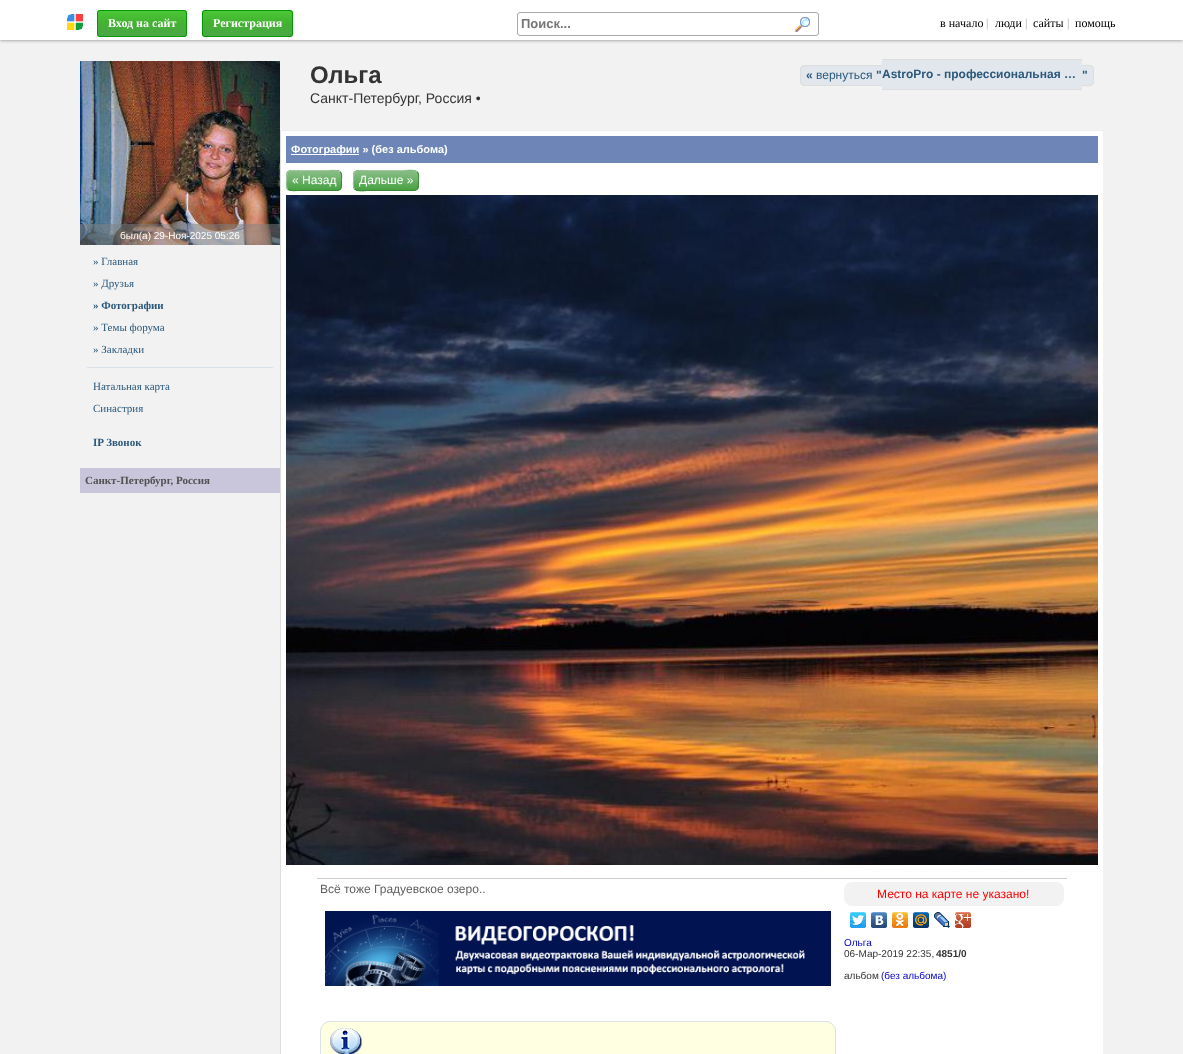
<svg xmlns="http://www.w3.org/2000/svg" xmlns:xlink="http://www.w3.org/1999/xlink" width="1183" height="1054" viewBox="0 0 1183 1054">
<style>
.cls-1{font:bold 12px Liberation Serif;fill:#ffffff}
.cls-2{font:bold 13px Liberation Sans;fill:#757575}
.cls-3{font:12px Liberation Serif;fill:#000000}
.cls-4{font:12px Liberation Serif;fill:#aaaaaa}
.cls-5{font:bold 24px Liberation Sans;fill:#333333}
.cls-6{font:14px Liberation Sans;fill:#333333}
.cls-7{font:bold 12px Liberation Sans;fill:#2b587a}
.cls-8{font:12px Liberation Sans;fill:#2b587a}
.cls-9{font:10px Liberation Sans;fill:#ffffff}
.cls-10{font:11px Liberation Serif;fill:#2b587a}
.cls-11{font:bold 11px Liberation Serif;fill:#2b587a}
.cls-12{font:bold 11px Liberation Serif;fill:#535151}
.cls-13{font:bold 11px Liberation Sans;fill:#ffffff}
.cls-14{font:12px Liberation Sans;fill:#ffffff}
.cls-15{font:12px Liberation Sans;fill:#606060}
.cls-16{font:12px Liberation Sans;fill:#ff0000}
.cls-17{font:10px Liberation Sans;fill:#0000cc}
.cls-18{font:10px Liberation Sans;fill:#333333}
.cls-19{font:bold 10px Liberation Sans;fill:#333333}
</style>
<rect width="100%" height="100%" fill="#f2f2f2"/>
<rect fill="#aaaaaa" filter="blur(1.5px)" x="0" y="1" width="1183" height="40"/>
<rect fill="#ffffff" x="0" y="0" width="1183" height="40"/>
<image xlink:href="image0.png" x="67" y="14" width="16" height="16"/>
<image xlink:href="image1.png" x="97" y="10" width="90" height="27"/>
<rect fill="none" stroke="#009900" x="97.5" y="10.5" width="89" height="26" rx="2.5"/>
<image xlink:href="image2.png" x="202" y="10" width="91" height="27"/>
<rect fill="none" stroke="#009900" x="202.5" y="10.5" width="90" height="26" rx="2.5"/>
<rect fill="none" stroke="#aaaaaa" x="517.5" y="12.5" width="301" height="23" rx="2.5"/>
<image xlink:href="image3.png" x="795" y="17" width="15" height="15"/>
<path fill="#e1e7ed" d="M805 65H813V86H805C802 86 800 84 800 81V70C800 67 802 65 805 65Z"/>
<path fill="#dddddd" fill-rule="evenodd" d="M805 65H813V86H805C802 86 800 84 800 81V70C800 67 802 65 805 65ZM805 66H813V85H805C803 85 801 83 801 81V70C801 68 803 66 805 66Z"/>
<rect fill="#e1e7ed" x="813" y="66" width="63" height="19"/>
<rect fill="#dddddd" x="813" y="65" width="63" height="1"/>
<rect fill="#dddddd" x="813" y="85" width="63" height="1"/>
<rect fill="#e1e7ed" x="876" y="65" width="6" height="21"/>
<rect fill="#dddddd" x="876" y="65" width="6" height="1"/>
<rect fill="#dddddd" x="876" y="85" width="6" height="1"/>
<rect fill="#e1e7ed" x="882" y="60" width="200" height="29"/>
<rect fill="#dddddd" x="882" y="59" width="200" height="1"/>
<rect fill="#dddddd" x="882" y="89" width="200" height="1"/>
<path fill="#e1e7ed" d="M1082 65H1089C1092 65 1094 67 1094 70V81C1094 84 1092 86 1089 86H1082Z"/>
<path fill="#dddddd" fill-rule="evenodd" d="M1082 65C1086 65 1093 63.5 1094 69V82C1093 87.5 1086 86 1082 86ZM1082 66C1085.5 66 1092 64.5 1093 69V82C1092 86.5 1085.5 85 1082 85Z"/>
<rect fill="#eeeeee" x="280" y="130" width="824" height="1"/>
<image xlink:href="image4.png" x="80" y="61" width="200" height="184"/>
<rect fill="#808080" fill-opacity="0.5" x="80" y="224" width="200" height="21"/>
<rect fill="#dae1e8" x="87" y="367" width="186" height="1"/>
<rect fill="#c9c5db" x="80" y="468" width="200" height="25"/>
<rect fill="#ffffff" x="281" y="131" width="822" height="923"/>
<rect fill="#dddddd" x="280" y="131" width="1" height="923"/>
<rect fill="#6d86b7" x="286" y="136" width="812" height="27"/>
<rect fill="#ffffff" x="291" y="154" width="68" height="1"/>
<rect fill="#429f3d" x="286" y="170" width="56" height="21" rx="5"/>
<image xlink:href="image5.png" x="286" y="171" width="56" height="20"/>
<rect fill="#429f3d" x="353" y="170" width="66" height="21" rx="5"/>
<image xlink:href="image6.png" x="353" y="171" width="66" height="20"/>
<path fill="none" stroke="#3a8636" d="M340 172C342.5 174 341.5 178 341.5 180.5C341.5 191.5 340.5 190.5 329.5 190.5H298.5C296.5 190.5 290.5 191.5 288 189"/>
<path fill="none" stroke="#a8cba6" d="M288 189C285.5 187 286.5 183 286.5 180.5C286.5 169.5 287.5 170.5 298.5 170.5H329.5C331.5 170.5 337.5 169.5 340 172"/>
<path fill="none" stroke="#3a8636" d="M417 172C419.5 174 418.5 178 418.5 180.5C418.5 192 417 190.5 404.5 190.5H367.5C365.5 190.5 357.5 192 355 189"/>
<path fill="none" stroke="#a8cba6" d="M355 189C352.5 187 353.5 183 353.5 180.5C353.5 169 355 170.5 367.5 170.5H404.5C406.5 170.5 414.5 169 417 172"/>
<image xlink:href="image7.png" x="286" y="195" width="812" height="670"/>
<rect fill="#cccccc" x="317" y="878" width="750" height="1"/>
<image xlink:href="image8.png" x="325" y="911" width="506" height="75"/>
<rect fill="#ffffe1" x="320" y="1021" width="516" height="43" rx="10"/>
<image xlink:href="image9.png" x="330" y="1028" width="32" height="26"/>
<rect fill="none" stroke="#dae1e8" x="320.5" y="1021.5" width="515" height="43" rx="9.5"/>
<rect fill="#f2f2f2" x="844" y="882" width="220" height="24" rx="8"/>
<image xlink:href="image10.png" x="850" y="912" width="16" height="16"/>
<image xlink:href="image11.png" x="871" y="912" width="16" height="16"/>
<image xlink:href="image12.png" x="892" y="912" width="16" height="16"/>
<image xlink:href="image13.png" x="913" y="912" width="16" height="16"/>
<image xlink:href="image14.png" x="934" y="912" width="16" height="16"/>
<image xlink:href="image15.png" x="955" y="912" width="16" height="16"/>
<text class="cls-1" x="108" y="27">Вход на сайт</text>
<text class="cls-1" x="213" y="27">Регистрация</text>
<text class="cls-2" x="521" y="28">Поиск...</text>
<text class="cls-3" x="940" y="27">в начало</text>
<text class="cls-4" x="986" y="27">|</text>
<text class="cls-3" x="995" y="27">люди</text>
<text class="cls-4" x="1025" y="27">|</text>
<text class="cls-3" x="1033" y="27">сайты</text>
<text class="cls-4" x="1067" y="27">|</text>
<text class="cls-3" x="1075" y="27">помощь</text>
<text class="cls-5" x="310" y="83">Ольга</text>
<text class="cls-6" x="310" y="103">Санкт-Петербург, Россия •</text>
<text class="cls-7" x="806" y="79">«</text>
<text class="cls-8" x="816" y="79">вернуться</text>
<text class="cls-7" x="876" y="79">"</text>
<text class="cls-7" x="882" y="78">AstroPro - профессиональная …</text>
<text class="cls-7" x="1082" y="79">"</text>
<text class="cls-9" x="120" y="239">был(а) 29-Ноя-2025 05:26</text>
<text class="cls-10" x="93" y="265">» Главная</text>
<text class="cls-10" x="93" y="287">» Друзья</text>
<text class="cls-11" x="93" y="309">» Фотографии</text>
<text class="cls-10" x="93" y="331">» Темы форума</text>
<text class="cls-10" x="93" y="353">» Закладки</text>
<text class="cls-10" x="93" y="390">Натальная карта</text>
<text class="cls-10" x="93" y="412">Синастрия</text>
<text class="cls-11" x="93" y="446">IP Звонок</text>
<text class="cls-12" x="85" y="484">Санкт-Петербург, Россия</text>
<text class="cls-13" x="291" y="153">Фотографии » (без альбома)</text>
<text class="cls-14" x="292" y="184">« Назад</text>
<text class="cls-14" x="359" y="184">Дальше »</text>
<text class="cls-15" x="320" y="893">Всё тоже Градуевское озеро..</text>
<text class="cls-16" x="877" y="898">Место на карте не указано!</text>
<text class="cls-17" x="844" y="946">Ольга</text>
<text class="cls-18" x="844" y="957">06-Мар-2019 22:35,</text>
<text class="cls-19" x="936" y="957">4851/0</text>
<text class="cls-18" x="844" y="979">альбом</text>
<text class="cls-17" x="881" y="979">(без альбома)</text>
</svg>
